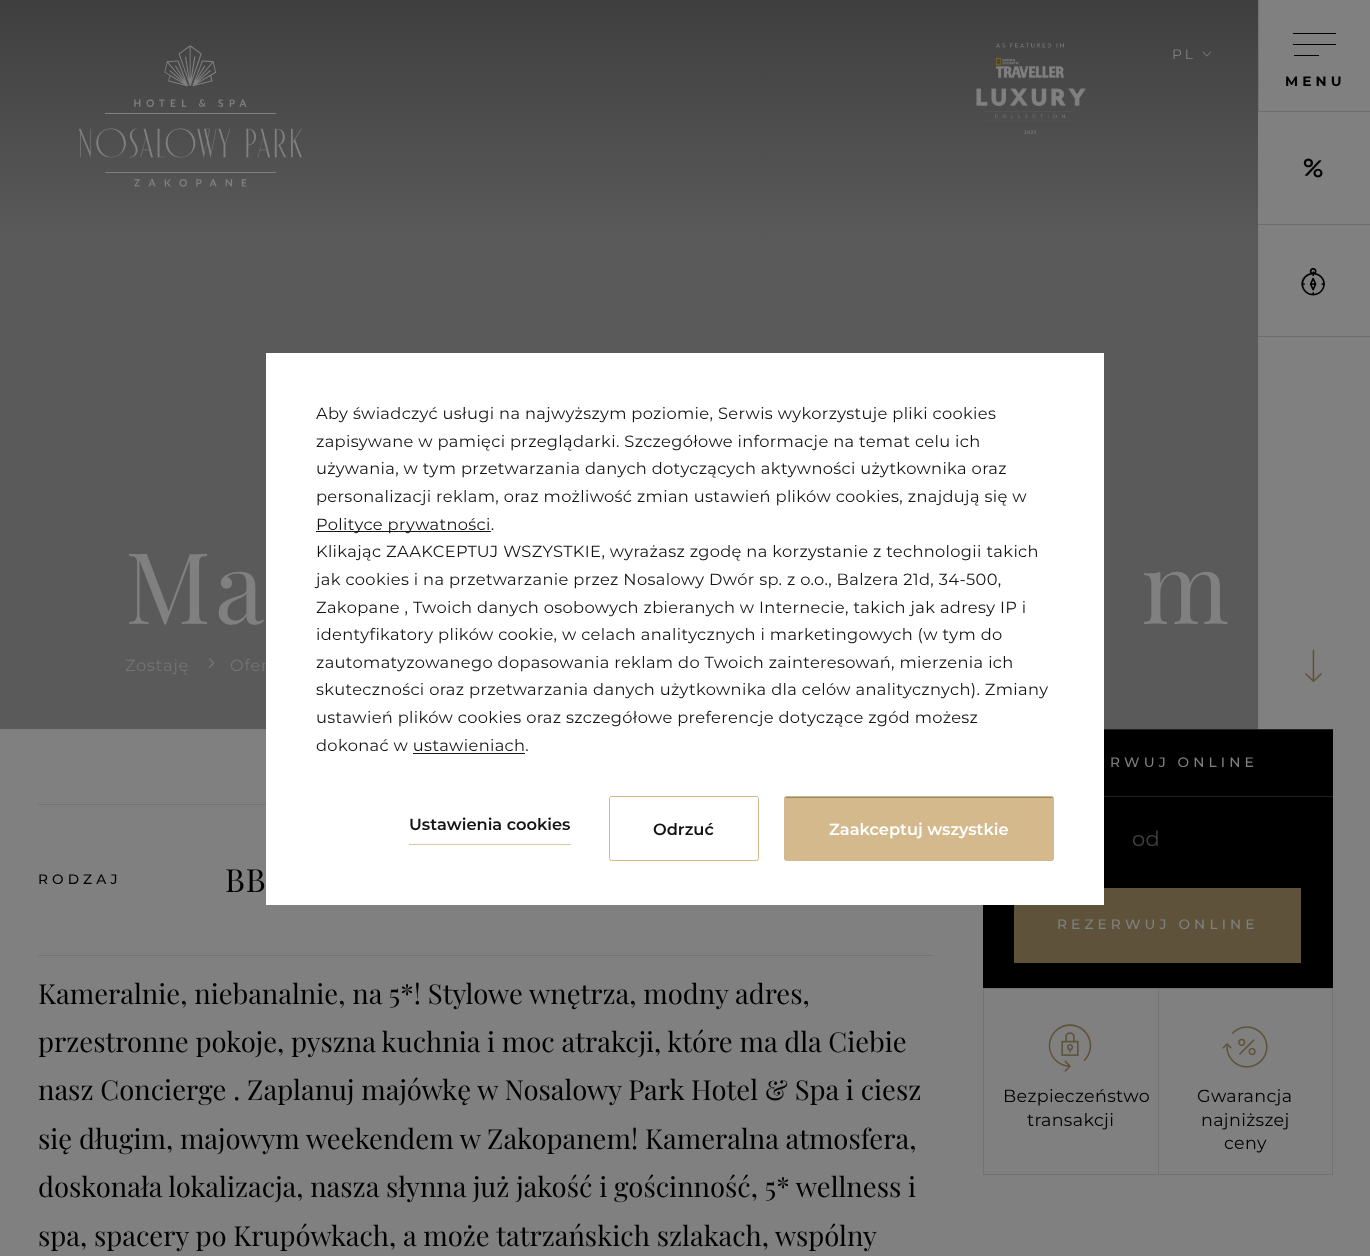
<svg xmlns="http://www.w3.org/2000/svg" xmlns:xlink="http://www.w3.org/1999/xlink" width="1370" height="1256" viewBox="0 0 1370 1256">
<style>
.cls-1{font:100 13.75px 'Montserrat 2';letter-spacing:3px;fill:#808080}
.cls-2{font:99px Playfair Display;letter-spacing:4px;fill:#808080}
.cls-3{font:100 16.25px 'Montserrat 2';letter-spacing:0.75px;fill:#747474}
.cls-4{font:100 13.75px Montserrat;letter-spacing:4.1px;fill:#000000}
.cls-5{font:32px Playfair Display;letter-spacing:1px;fill:#000000}
.cls-6{font:27.5px Playfair Display;fill:#000000}
.cls-7{font:100 13.75px Montserrat;letter-spacing:4.1px;fill:#808080}
.cls-8{font:100 21px 'Montserrat 2';letter-spacing:0.35px;fill:#404040}
.cls-9{font:100 17.5px 'Montserrat 2';letter-spacing:0.35px;fill:#000000}
.cls-10{font:100 13.75px 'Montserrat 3';letter-spacing:4.1px;fill:#000000}
.cls-11{font:100 16.25px 'Montserrat 2';letter-spacing:0.35px;fill:#141416}
.cls-12{font:100 16.25px 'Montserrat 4';fill:#141416}
.cls-13{font:100 16.25px 'Montserrat 4';fill:#ffffff}
</style>
<defs>
<linearGradient id="g1" gradientUnits="userSpaceOnUse" x1="629" y1="0" x2="629" y2="240"><stop offset="0" stop-color="#3f3f3f"/><stop offset="1" stop-color="#5a5a5a"/></linearGradient>
</defs>
<rect width="100%" height="100%" fill="#808080"/>
<rect fill="#5a5a5a" x="0" y="240" width="1258" height="489"/>
<rect fill="url(#g1)" x="0" y="0" width="1258" height="240"/>
<image xlink:href="image0.png" x="79" y="45" width="223" height="142"/>
<image xlink:href="image1.png" x="976" y="43" width="110" height="92"/>
<image xlink:href="image2.png" x="1202" y="51" width="9" height="6"/>
<image xlink:href="image3.png" x="208" y="658" width="7" height="10"/>
<image xlink:href="image4.png" x="1305" y="649" width="17" height="33"/>
<rect fill="#737373" x="38" y="804" width="228" height="1"/>
<rect fill="#737373" x="38" y="955" width="895" height="1"/>
<rect fill="#000000" x="1104" y="730" width="229" height="68"/>
<rect fill="#202020" x="1104" y="729" width="229" height="1"/>
<rect fill="#202020" x="1104" y="796" width="229" height="1"/>
<rect fill="#000000" x="983" y="798" width="350" height="190"/>
<rect fill="#5e533a" x="1014" y="888" width="287" height="75"/>
<rect fill="none" stroke="#737373" x="983.5" y="988.5" width="349" height="186"/>
<image xlink:href="image5.png" x="1048" y="1024" width="44" height="48"/>
<rect fill="#737373" x="1158" y="989" width="1" height="185"/>
<image xlink:href="image6.png" x="1222" y="1026" width="46" height="42"/>
<rect fill="#6d6d6d" x="1258" y="111" width="112" height="1"/>
<rect fill="#737373" x="1258" y="0" width="1" height="113"/>
<rect fill="#000000" x="1293" y="33" width="43" height="1"/>
<rect fill="#000000" x="1293" y="44" width="43" height="1"/>
<rect fill="#000000" x="1294" y="55" width="25" height="1"/>
<rect fill="#6d6d6d" x="1258" y="224" width="112" height="1"/>
<image xlink:href="image7.png" x="1303" y="158" width="20" height="20"/>
<rect fill="#6d6d6d" x="1258" y="336" width="112" height="1"/>
<image xlink:href="image8.png" x="1301" y="267" width="24" height="29"/>
<text class="cls-1" x="1172" y="59">PL</text>
<text class="cls-2" x="125" y="624">Ma</text>
<text class="cls-2" x="1141" y="624">m</text>
<text class="cls-3" x="125" y="671">Zostaję</text>
<text class="cls-3" x="230" y="671">Ofer</text>
<text class="cls-4" x="38" y="884">RODZAJ</text>
<text class="cls-5" x="225" y="892">BB</text>
<text class="cls-6"><tspan x="38" y="1004">Kameralnie, niebanalnie, na 5*! Stylowe wnętrza, modny adres,</tspan><tspan x="38" y="1052">przestronne pokoje, pyszna kuchnia i moc atrakcji, które ma dla Ciebie</tspan><tspan x="38" y="1100">nasz Concierge . Zaplanuj majówkę w Nosalowy Park Hotel &amp; Spa i ciesz</tspan><tspan x="38" y="1149">się długim, majowym weekendem w Zakopanem! Kameralna atmosfera,</tspan><tspan x="38" y="1197">doskonała lokalizacja, nasza słynna już jakość i gościnność, 5* wellness i</tspan><tspan x="38" y="1246">spa, spacery po Krupówkach, a może tatrzańskich szlakach, wspólny</tspan></text>
<text class="cls-7" x="1110" y="767">RWUJ ONLINE</text>
<text class="cls-8" x="1132" y="846">od</text>
<text class="cls-7" x="1057" y="929">REZERWUJ ONLINE</text>
<text class="cls-9" x="1003" y="1102">Bezpieczeństwo</text>
<text class="cls-9" x="1027" y="1126">transakcji</text>
<text class="cls-9" x="1197" y="1102">Gwarancja</text>
<text class="cls-9" x="1201" y="1126">najniższej</text>
<text class="cls-9" x="1224" y="1149">ceny</text>
<text class="cls-10" x="1285" y="86">MENU</text>
<rect fill="#ffffff" x="266" y="353" width="838" height="552"/>
<text class="cls-11"><tspan x="316" y="419">Aby świadczyć usługi na najwyższym poziomie, Serwis wykorzystuje pliki cookies</tspan><tspan x="316" y="447">zapisywane w pamięci przeglądarki. Szczegółowe informacje na temat celu ich</tspan><tspan x="316" y="474">używania, w tym przetwarzania danych dotyczących aktywności użytkownika oraz</tspan><tspan x="316" y="502">personalizacji reklam, oraz możliwość zmian ustawień plików cookies, znajdują się w</tspan></text>
<rect fill="#141416" x="316" y="531" width="175" height="1"/>
<text class="cls-11"><tspan x="316" y="530">Polityce prywatności.</tspan><tspan x="316" y="557">Klikając ZAAKCEPTUJ WSZYSTKIE, wyrażasz zgodę na korzystanie z technologii takich</tspan><tspan x="316" y="585">jak cookies i na przetwarzanie przez Nosalowy Dwór sp. z o.o., Balzera 21d, 34-500,</tspan><tspan x="316" y="613">Zakopane , Twoich danych osobowych zbieranych w Internecie, takich jak adresy IP i</tspan><tspan x="316" y="640">identyfikatory plików cookie, w celach analitycznych i marketingowych (w tym do</tspan><tspan x="316" y="668">zautomatyzowanego dopasowania reklam do Twoich zainteresowań, mierzenia ich</tspan><tspan x="316" y="695">skuteczności oraz przetwarzania danych użytkownika dla celów analitycznych). Zmiany</tspan><tspan x="316" y="723">ustawień plików cookies oraz szczegółowe preferencje dotyczące zgód możesz</tspan><tspan x="316" y="751">dokonać w ustawieniach.</tspan></text>
<rect fill="#141416" x="413" y="753" width="112" height="1"/>
<text class="cls-12" x="409" y="830">Ustawienia cookies</text>
<rect fill="#dcc7a3" x="409" y="844" width="162" height="1"/>
<rect fill="#d3b98c" x="409" y="844" width="1" height="1"/>
<rect fill="none" stroke="#d3b98c" x="609.5" y="796.5" width="149" height="64" rx="2"/>
<text class="cls-12" x="653" y="835">Odrzuć</text>
<rect fill="#938767" stroke="#d3b98c" x="784.5" y="796.5" width="269" height="64" rx="2"/>
<rect fill="#d3b98c" x="785" y="798" width="268" height="62"/>
<text class="cls-13" x="829" y="835">Zaakceptuj wszystkie</text>
</svg>
